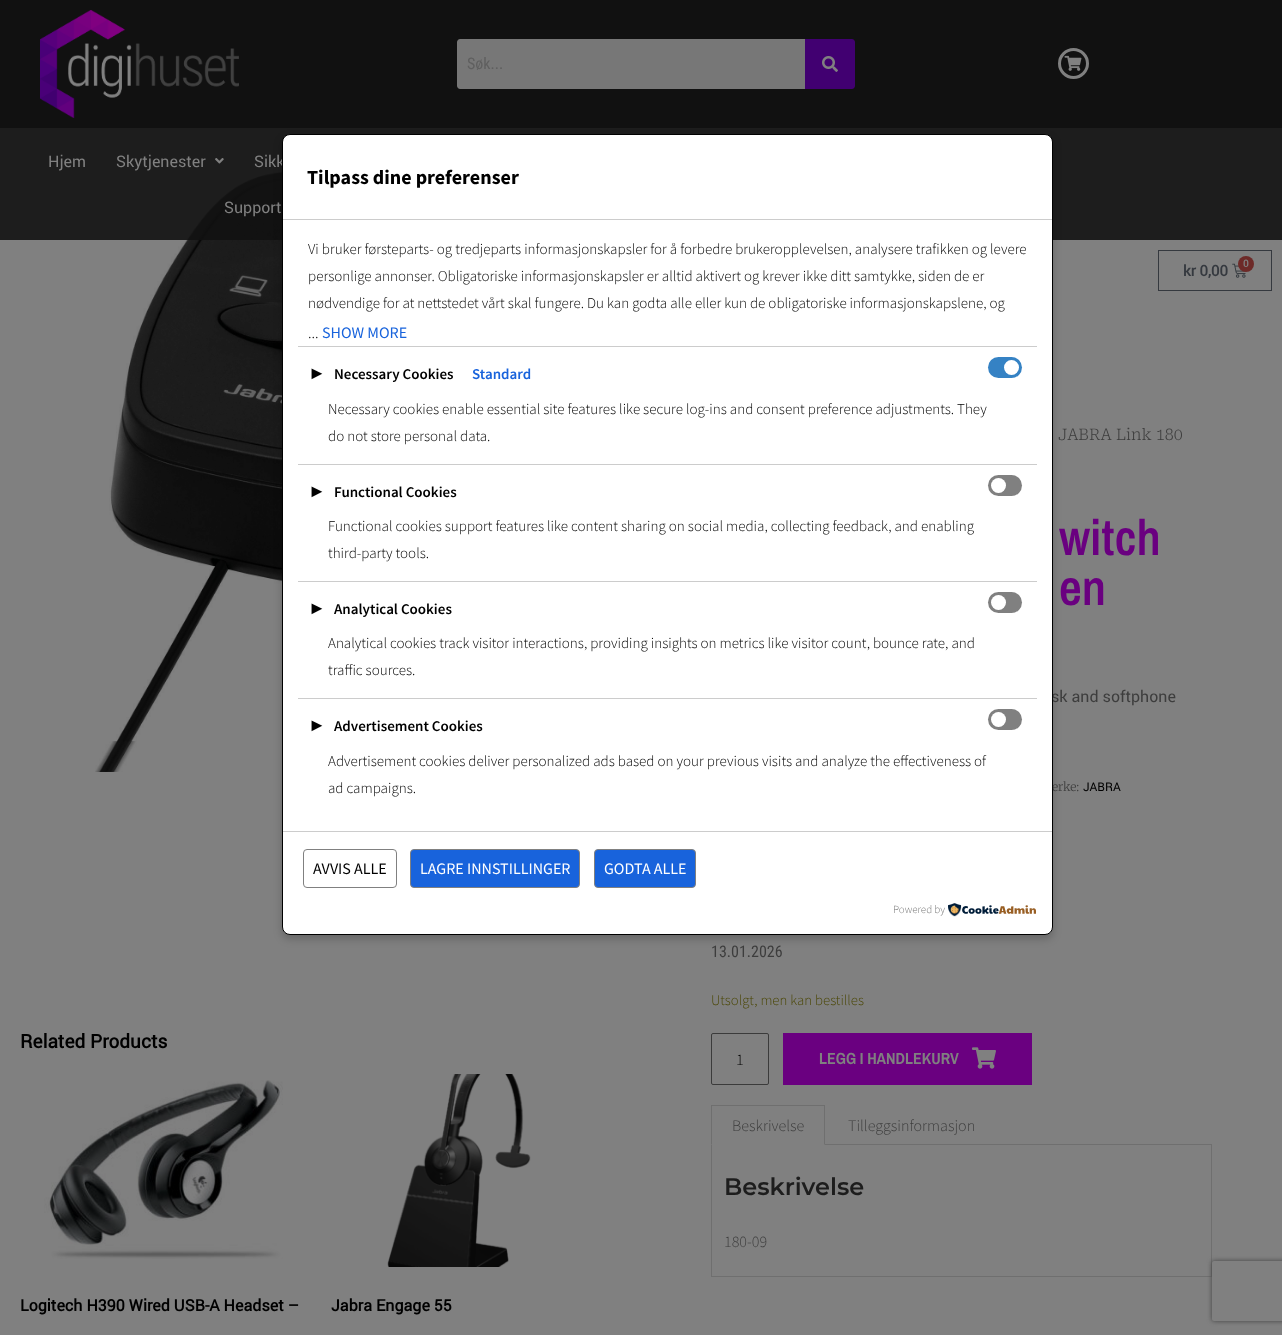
<svg xmlns="http://www.w3.org/2000/svg" xmlns:xlink="http://www.w3.org/1999/xlink" width="1282" height="1335" viewBox="0 0 1282 1335">
<style>
.cls-1{font:16px Roboto Condensed;fill:#5f5f5f}
.cls-2{font:16px Roboto;fill:#808080}
.cls-3{font:bold 15px Roboto;fill:#35393f}
.cls-4{font:bold 10px Roboto;fill:#808080}
.cls-5{font:bold 19px Roboto;fill:#000000}
.cls-6{font:bold 16px Roboto;fill:#000000}
.cls-7{font:200 16px Roboto Serif;fill:#3d3d3d}
.cls-8{font:600 50px Archivo Narrow;fill:#6a0080}
.cls-9{font:16px Roboto;fill:#3d3d3d}
.cls-10{font:300 12px Merriweather;fill:#3d3d3d}
.cls-11{font:12px Roboto;fill:#000000}
.cls-12{font:16px Roboto Condensed;fill:#3d3d3d}
.cls-13{font:300 14.75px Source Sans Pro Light;fill:#4b4705}
.cls-14{font:300 16px Source Sans Pro Light;fill:#000000}
.cls-15{font:bold 16px Archivo Narrow;fill:#808080}
.cls-16{font:300 16px Source Sans Pro Light;fill:#3d3d3d}
.cls-17{font:600 24px Montserrat;fill:#1d1d1d}
.cls-18{font:bold 20px Source Sans Pro;fill:#000000}
.cls-19{font:300 15px Source Sans Pro Light;fill:#000000}
.cls-20{font:16px Source Sans Pro;fill:#1863dc}
.cls-21{font:18px Liberation Sans;fill:#000000}
.cls-22{font:600 15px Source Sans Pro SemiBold;fill:#000000}
.cls-23{font:600 15px Source Sans Pro SemiBold;fill:#1863dc}
.cls-24{font:16px Source Sans Pro;fill:#000000}
.cls-25{font:16px Source Sans Pro;fill:#ffffff}
.cls-26{font:300 11px Source Sans Pro Light;fill:#767676}
</style>
<defs>
<clipPath id="clip1"><path d="M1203 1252H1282V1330H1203ZM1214 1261H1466C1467 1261 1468 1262 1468 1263V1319C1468 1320 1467 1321 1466 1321H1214C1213 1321 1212 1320 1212 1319V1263C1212 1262 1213 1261 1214 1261Z" clip-rule="evenodd"/></clipPath>
</defs>
<rect width="100%" height="100%" fill="#808080"/>
<rect fill="#111111" x="0" y="0" width="1282" height="128"/>
<image xlink:href="image0.png" x="40" y="10" width="199" height="108"/>
<path fill="#777777" d="M460 39H805V89H460C458.5 89 457 87.5 457 86V42C457 40.5 458.5 39 460 39Z"/>
<path fill="#410071" d="M805 39H852C853.5 39 855 40.5 855 42V86C855 87.5 853.5 89 852 89H805Z"/>
<image xlink:href="image1.png" x="822" y="56" width="16" height="16"/>
<circle fill="none" stroke="#808080" stroke-width="3" cx="1073.5" cy="63.5" r="14"/>
<image xlink:href="image2.png" x="1064" y="55" width="18" height="16"/>
<image xlink:href="image5.png" x="95" y="171" width="187" height="601"/>
<rect fill="#111111" fill-opacity="0.89" x="0" y="128" width="1282" height="112"/>
<image xlink:href="image3.png" x="215" y="158" width="9" height="6"/>
<rect fill="none" stroke="#35393f" x="1158.5" y="250.5" width="113" height="40"/>
<image xlink:href="image4.png" x="1232" y="263" width="14" height="15"/>
<circle fill="#6d2a28" cx="1246" cy="264" r="8"/>
<image xlink:href="image6.png" x="44" y="1080" width="239" height="179"/>
<image xlink:href="image7.png" x="387" y="1074" width="144" height="193"/>
<rect fill="none" stroke="#3b3b3b" x="711.5" y="1033.5" width="57" height="51" rx="1.5"/>
<rect fill="#6a0080" x="783" y="1033" width="249" height="52"/>
<image xlink:href="image8.png" x="972" y="1047" width="24" height="22"/>
<rect fill="#6f6f6f" x="825" y="1144" width="387" height="1"/>
<rect fill="#6f6f6f" x="711" y="1105" width="114" height="1"/>
<path fill="#6f6f6f" d="M825 1105V1145L824 1144V1106Z"/>
<path fill="#6f6f6f" d="M711 1145V1105L712 1106V1144Z"/>
<rect fill="#6f6f6f" x="1211" y="1145" width="1" height="132"/>
<rect fill="#6f6f6f" x="711" y="1276" width="501" height="1"/>
<rect fill="#6f6f6f" x="711" y="1145" width="1" height="132"/>
<rect fill="#000000" fill-opacity="0.2" filter="blur(4px)" x="282" y="138" width="771" height="801" rx="8"/>
<g clip-path="url(#clip1)">
<rect fill="#404040" filter="blur(2.5px)" x="1212" y="1261" width="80" height="60" rx="2"/>
</g>
<text class="cls-1" x="467" y="69">Søk...</text>
<text class="cls-2" x="48" y="167">Hjem</text>
<text class="cls-2" x="116" y="167">Skytjenester</text>
<text class="cls-2" x="254" y="167">Sikk</text>
<text class="cls-2" x="224" y="213">Support</text>
<text class="cls-3" x="1183" y="276">kr 0,00</text>
<text class="cls-4" x="1243" y="267">0</text>
<text class="cls-5" x="20" y="1048">Related Products</text>
<text class="cls-6" x="20" y="1311">Logitech H390 Wired USB-A Headset –</text>
<text class="cls-6" x="331" y="1311">Jabra Engage 55</text>
<text class="cls-7" x="1058" y="440">JABRA Link 180</text>
<text class="cls-8"><tspan x="1059" y="555">witch</tspan><tspan x="1059" y="605">en</tspan></text>
<text class="cls-9" x="1051" y="702">sk and softphone</text>
<text class="cls-10" x="1052" y="791">erke:</text>
<text class="cls-11" x="1083" y="791">JABRA</text>
<text class="cls-12" x="711" y="957">13.01.2026</text>
<text class="cls-13" x="711" y="1005">Utsolgt, men kan bestilles</text>
<text class="cls-14" x="736" y="1065">1</text>
<text class="cls-15" x="819" y="1064">LEGG I HANDLEKURV</text>
<text class="cls-16" x="732" y="1131">Beskrivelse</text>
<text class="cls-16" x="848" y="1131">Tilleggsinformasjon</text>
<text class="cls-17" x="724" y="1195">Beskrivelse</text>
<text class="cls-16" x="724" y="1247">180-09</text>
<rect fill="#ffffff" stroke="#000000" x="282.5" y="134.5" width="770" height="800" rx="7.5"/>
<rect fill="#cccccc" x="283" y="219" width="769" height="1"/>
<text class="cls-18" x="307" y="184">Tilpass dine preferenser</text>
<text class="cls-19"><tspan x="308" y="254">Vi bruker førsteparts- og tredjeparts informasjonskapsler for å forbedre brukeropplevelsen, analysere trafikken og levere</tspan><tspan x="308" y="281">personlige annonser. Obligatoriske informasjonskapsler er alltid aktivert og krever ikke ditt samtykke, siden de er</tspan><tspan x="308" y="308">nødvendige for at nettstedet vårt skal fungere. Du kan godta alle eller kun de obligatoriske informasjonskapslene, og</tspan></text>
<text class="cls-14" x="308" y="338">...</text>
<text class="cls-20" x="322" y="338">SHOW MORE</text>
<rect fill="#cccccc" x="298" y="346" width="739" height="1"/>
<text class="cls-21" x="308" y="379">►</text>
<text class="cls-22" x="334" y="379">Necessary Cookies</text>
<text class="cls-23" x="472" y="379">Standard</text>
<rect fill="#3582c4" x="988" y="357" width="34" height="21" rx="10.5"/>
<circle fill="#ffffff" cx="1011.5" cy="367.5" r="7.5"/>
<text class="cls-19"><tspan x="328" y="414">Necessary cookies enable essential site features like secure log-ins and consent preference adjustments. They</tspan><tspan x="328" y="441">do not store personal data.</tspan></text>
<rect fill="#cccccc" x="298" y="464" width="739" height="1"/>
<text class="cls-21" x="308" y="497">►</text>
<text class="cls-22" x="334" y="497">Functional Cookies</text>
<rect fill="#808080" x="988" y="475" width="34" height="21" rx="10.5"/>
<circle fill="#ffffff" cx="998.5" cy="485.5" r="7.5"/>
<text class="cls-19"><tspan x="328" y="531">Functional cookies support features like content sharing on social media, collecting feedback, and enabling</tspan><tspan x="328" y="558">third-party tools.</tspan></text>
<rect fill="#cccccc" x="298" y="581" width="739" height="1"/>
<text class="cls-21" x="308" y="614">►</text>
<text class="cls-22" x="334" y="614">Analytical Cookies</text>
<rect fill="#808080" x="988" y="592" width="34" height="21" rx="10.5"/>
<circle fill="#ffffff" cx="998.5" cy="602.5" r="7.5"/>
<text class="cls-19"><tspan x="328" y="648">Analytical cookies track visitor interactions, providing insights on metrics like visitor count, bounce rate, and</tspan><tspan x="328" y="675">traffic sources.</tspan></text>
<rect fill="#cccccc" x="298" y="698" width="739" height="1"/>
<text class="cls-21" x="308" y="731">►</text>
<text class="cls-22" x="334" y="731">Advertisement Cookies</text>
<rect fill="#808080" x="988" y="709" width="34" height="21" rx="10.5"/>
<circle fill="#ffffff" cx="998.5" cy="719.5" r="7.5"/>
<text class="cls-19"><tspan x="328" y="766">Advertisement cookies deliver personalized ads based on your previous visits and analyze the effectiveness of</tspan><tspan x="328" y="793">ad campaigns.</tspan></text>
<rect fill="#cccccc" x="283" y="831" width="769" height="1"/>
<rect fill="none" stroke="#808080" x="303.5" y="849.5" width="93" height="38" rx="3.5"/>
<text class="cls-24" x="313" y="874">AVVIS ALLE</text>
<rect fill="#1863dc" stroke="#808080" x="410.5" y="849.5" width="169" height="38" rx="3.5"/>
<text class="cls-25" x="420" y="874">LAGRE INNSTILLINGER</text>
<rect fill="#1863dc" stroke="#808080" x="594.5" y="849.5" width="101" height="38" rx="3.5"/>
<text class="cls-25" x="604" y="874">GODTA ALLE</text>
<text class="cls-26" x="893" y="913">Powered by</text>
<image xlink:href="image9.png" x="948" y="903" width="88" height="14"/>
</svg>
